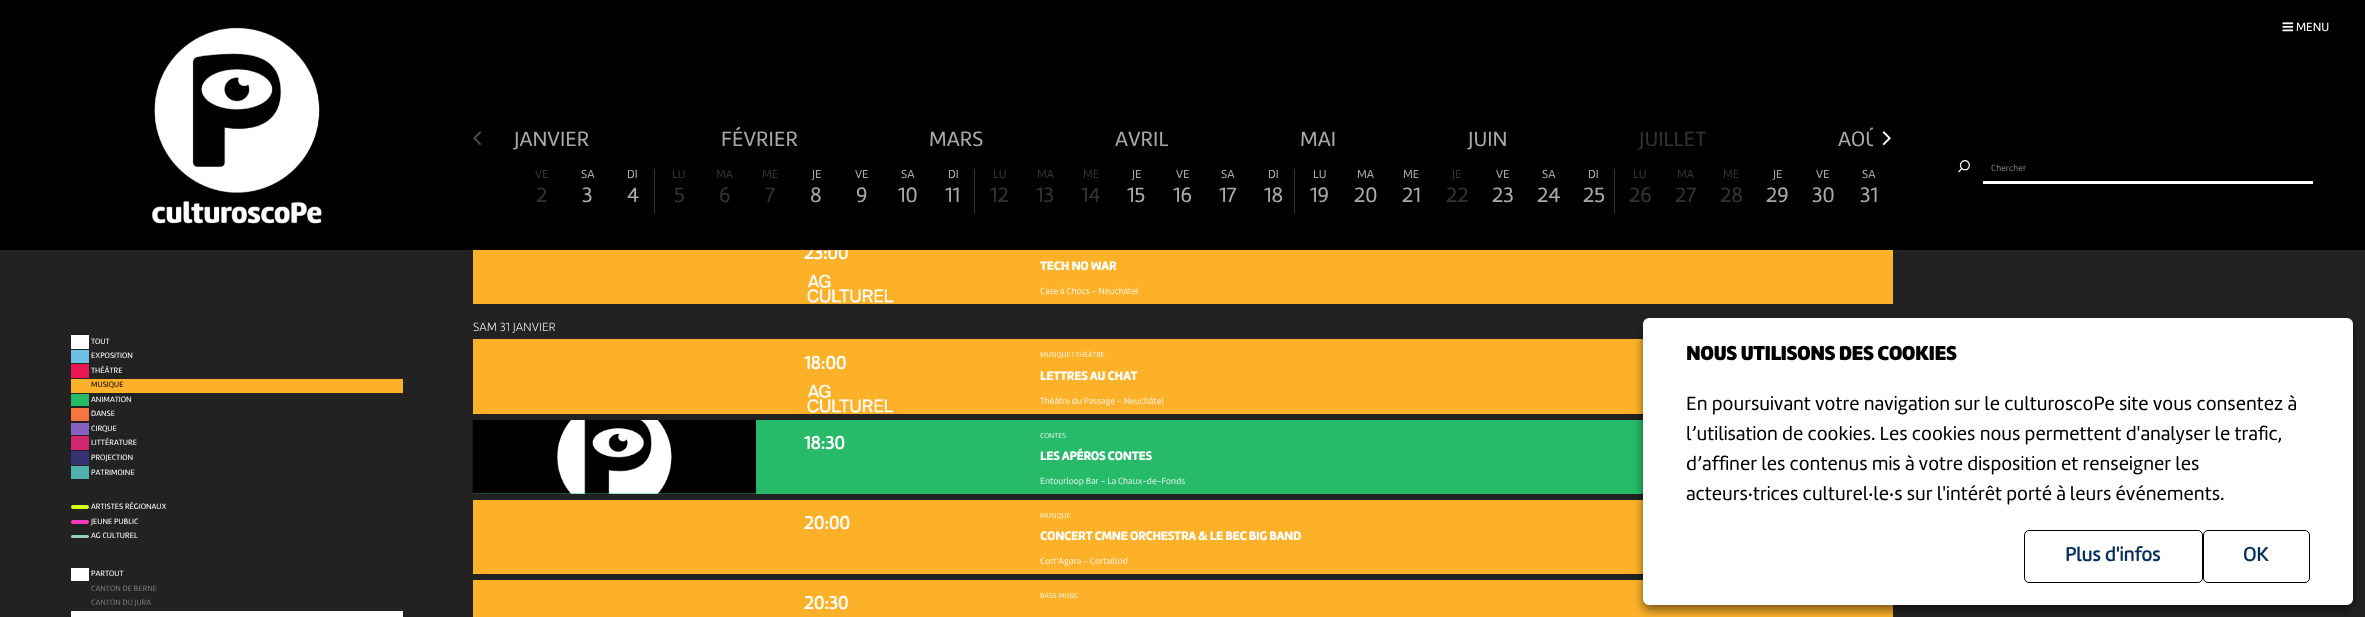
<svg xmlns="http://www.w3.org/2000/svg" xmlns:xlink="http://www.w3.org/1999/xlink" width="2365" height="617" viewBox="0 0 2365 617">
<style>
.cls-1{font:8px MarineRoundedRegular;fill:#ffffff}
.cls-2{font:8px MarineRoundedRegular;fill:#000000}
.cls-3{font:8px MarineRoundedRegular;fill:#7a7a7a}
.cls-4{font:bold 18.5px MarineRoundedRegular;fill:#ffffff}
.cls-5{font:12.35px MarineRoundedRegular;fill:#ffffff}
.cls-6{font:21.5px MarineRoundedRegular;fill:#a8a8a8}
.cls-7{font:21.5px MarineRoundedRegular;fill:#333333}
.cls-8{font:12px MarineRoundedRegular;fill:#a8a8a8}
.cls-9{font:12px MarineRoundedRegular;fill:#333333}
.cls-10{font:bold 12.35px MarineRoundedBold;fill:#ffffff}
.cls-11{font:9.25px MarineRoundedRegular;fill:#feefd4}
.cls-12{font:12.35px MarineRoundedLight;fill:#dfdfdf}
.cls-13{font:7.5px MarineRoundedRegular;fill:#feefd4}
.cls-14{font:7.5px MarineRoundedRegular;fill:#d4f1e1}
.cls-15{font:9.25px MarineRoundedRegular;fill:#d4f1e1}
.cls-16{font:9.25px MarineRoundedRegular;fill:#7a7a7a}
.cls-17{font:bold 20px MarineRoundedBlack;fill:#000000}
.cls-18{font:20px MarineRoundedRegular;fill:#000000}
.cls-19{font:bold 20px MarineRoundedRegular;fill:#07305c}
</style>
<defs>
<clipPath id="clip1"><rect x="493" y="125" width="1380" height="34"/></clipPath>
</defs>
<rect width="100%" height="100%" fill="#222222"/>
<rect fill="#ffffff" x="71" y="335" width="18" height="14"/>
<rect fill="#6dc0e4" x="71" y="350" width="18" height="13"/>
<rect fill="#e91555" x="71" y="364" width="18" height="14"/>
<rect fill="#fcb129" x="71" y="379" width="332" height="14"/>
<rect fill="#26ba69" x="71" y="394" width="18" height="12"/>
<rect fill="#f87540" x="71" y="408" width="18" height="13"/>
<rect fill="#8662be" x="71" y="423" width="18" height="12"/>
<rect fill="#d1256d" x="71" y="436" width="18" height="14"/>
<rect fill="#363170" x="71" y="451" width="18" height="14"/>
<rect fill="#52b0ae" x="71" y="466" width="18" height="13"/>
<rect fill="#d3ff01" x="71" y="505" width="18" height="4" rx="2"/>
<rect fill="#f738be" x="71" y="520" width="18" height="4" rx="2"/>
<rect fill="#99d1b8" x="71" y="535" width="18" height="3" rx="1.5"/>
<rect fill="#ffffff" x="71" y="568" width="18" height="13"/>
<rect fill="#ffffff" x="71" y="611" width="332" height="6"/>
<rect fill="#fcb129" x="473" y="250" width="1420" height="54"/>
<image xlink:href="image4.png" x="807" y="274" width="87" height="29"/>
<rect fill="#fcb129" x="473" y="339" width="1170" height="75"/>
<image xlink:href="image4.png" x="807" y="384" width="87" height="29"/>
<rect fill="#26ba69" x="473" y="420" width="1170" height="74"/>
<image xlink:href="image5.png" x="472" y="420" width="285" height="74"/>
<rect fill="#fcb129" x="473" y="500" width="1170" height="74"/>
<rect fill="#fcb129" x="473" y="580" width="1420" height="37"/>
<rect fill="#000000" fill-opacity="0.5" filter="blur(5px)" x="1643" y="323" width="710" height="287" rx="6"/>
<rect fill="#ffffff" stroke="#ffffff" stroke-width="3" x="1644.5" y="319.5" width="707" height="284" rx="4.5"/>
<rect fill="none" stroke="#000000" x="2024.5" y="530.5" width="178" height="52" rx="4.5"/>
<rect fill="none" stroke="#000000" x="2203.5" y="530.5" width="106" height="52" rx="4.5"/>
<text class="cls-1"><tspan x="91" y="344">TOUT</tspan><tspan x="91" y="358">EXPOSITION</tspan><tspan x="91" y="373">THÉÂTRE</tspan></text>
<text class="cls-2" x="91" y="387">MUSIQUE</text>
<text class="cls-1"><tspan x="91" y="402">ANIMATION</tspan><tspan x="91" y="416">DANSE</tspan><tspan x="91" y="431">CIRQUE</tspan><tspan x="91" y="445">LITTÉRATURE</tspan><tspan x="91" y="460">PROJECTION</tspan><tspan x="91" y="475">PATRIMOINE</tspan></text>
<text class="cls-1"><tspan x="91" y="509">ARTISTES RÉGIONAUX</tspan><tspan x="91" y="524">JEUNE PUBLIC</tspan><tspan x="91" y="538">AG CULTUREL</tspan></text>
<text class="cls-1" x="91" y="576">PARTOUT</text>
<text class="cls-3"><tspan x="91" y="591">CANTON DE BERNE</tspan><tspan x="91" y="605">CANTON DU JURA</tspan></text>
<text class="cls-4" x="804" y="259">23:00</text>
<rect fill="#000000" x="0" y="0" width="2365" height="250"/>
<text class="cls-5" x="2296" y="31">MENU</text>
<image xlink:href="image0.png" x="2282" y="22" width="12" height="10"/>
<image xlink:href="image3.png" x="1882" y="131" width="9" height="15"/>
<image xlink:href="image2.png" x="473" y="131" width="9" height="14"/>
<g clip-path="url(#clip1)">
<text class="cls-6" x="1838" y="146">AOÛ</text>
</g>
<text class="cls-7" x="1639" y="146">JUILLET</text>
<text class="cls-6" x="1468" y="146">JUIN</text>
<text class="cls-6" x="1300" y="146">MAI</text>
<text class="cls-6" x="1115" y="146">AVRIL</text>
<text class="cls-6" x="929" y="146">MARS</text>
<text class="cls-6" x="721" y="146">FÉVRIER</text>
<text class="cls-6" x="514" y="146">JANVIER</text>
<text class="cls-6" x="1860" y="202">31</text>
<text class="cls-8" x="1862" y="178">SA</text>
<text class="cls-6" x="1812" y="202">30</text>
<text class="cls-8" x="1816" y="178">VE</text>
<text class="cls-6" x="1766" y="202">29</text>
<text class="cls-8" x="1773" y="178">JE</text>
<text class="cls-7" x="1720" y="202">28</text>
<text class="cls-9" x="1723" y="178">ME</text>
<text class="cls-7" x="1675" y="202">27</text>
<text class="cls-9" x="1677" y="178">MA</text>
<text class="cls-7" x="1629" y="202">26</text>
<text class="cls-9" x="1633" y="178">LU</text>
<text class="cls-6" x="1583" y="202">25</text>
<text class="cls-8" x="1588" y="178">DI</text>
<rect fill="#333333" x="1614" y="169" width="1" height="44"/>
<text class="cls-6" x="1537" y="202">24</text>
<text class="cls-8" x="1542" y="178">SA</text>
<text class="cls-6" x="1492" y="202">23</text>
<text class="cls-8" x="1496" y="178">VE</text>
<text class="cls-7" x="1446" y="202">22</text>
<text class="cls-9" x="1452" y="178">JE</text>
<text class="cls-6" x="1402" y="202">21</text>
<text class="cls-8" x="1403" y="178">ME</text>
<text class="cls-6" x="1354" y="202">20</text>
<text class="cls-8" x="1357" y="178">MA</text>
<text class="cls-6" x="1310" y="202">19</text>
<text class="cls-8" x="1313" y="178">LU</text>
<text class="cls-6" x="1264" y="202">18</text>
<text class="cls-8" x="1268" y="178">DI</text>
<rect fill="#333333" x="1294" y="169" width="1" height="44"/>
<text class="cls-6" x="1219" y="202">17</text>
<text class="cls-8" x="1221" y="178">SA</text>
<text class="cls-6" x="1173" y="202">16</text>
<text class="cls-8" x="1176" y="178">VE</text>
<text class="cls-6" x="1127" y="202">15</text>
<text class="cls-8" x="1132" y="178">JE</text>
<text class="cls-7" x="1081" y="202">14</text>
<text class="cls-9" x="1083" y="178">ME</text>
<text class="cls-7" x="1036" y="202">13</text>
<text class="cls-9" x="1037" y="178">MA</text>
<text class="cls-7" x="990" y="202">12</text>
<text class="cls-9" x="993" y="178">LU</text>
<text class="cls-6" x="945" y="202">11</text>
<text class="cls-8" x="948" y="178">DI</text>
<rect fill="#333333" x="974" y="169" width="1" height="44"/>
<text class="cls-6" x="898" y="202">10</text>
<text class="cls-8" x="901" y="178">SA</text>
<text class="cls-6" x="856" y="202">9</text>
<text class="cls-8" x="855" y="178">VE</text>
<text class="cls-6" x="810" y="202">8</text>
<text class="cls-8" x="812" y="178">JE</text>
<text class="cls-7" x="765" y="202">7</text>
<text class="cls-9" x="762" y="178">ME</text>
<text class="cls-7" x="719" y="202">6</text>
<text class="cls-9" x="716" y="178">MA</text>
<text class="cls-7" x="674" y="202">5</text>
<text class="cls-9" x="672" y="178">LU</text>
<text class="cls-6" x="627" y="202">4</text>
<text class="cls-8" x="627" y="178">DI</text>
<rect fill="#333333" x="654" y="169" width="1" height="44"/>
<text class="cls-6" x="582" y="202">3</text>
<text class="cls-8" x="581" y="178">SA</text>
<text class="cls-7" x="536" y="202">2</text>
<text class="cls-9" x="535" y="178">VE</text>
<image xlink:href="image1.png" x="152" y="27" width="170" height="197"/>
<text class="cls-10" x="1040" y="270">TECH NO WAR</text>
<text class="cls-11" x="1040" y="294">Case à Chocs - Neuchâtel</text>
<text class="cls-12" x="473" y="331">SAM 31 JANVIER</text>
<text class="cls-4" x="804" y="369">18:00</text>
<text class="cls-13" x="1040" y="357">MUSIQUE | THÉÂTRE</text>
<text class="cls-10" x="1040" y="380">LETTRES AU CHAT</text>
<text class="cls-11" x="1040" y="404">Théâtre du Passage - Neuchâtel</text>
<text class="cls-4" x="804" y="449">18:30</text>
<text class="cls-14" x="1040" y="438">CONTES</text>
<text class="cls-10" x="1040" y="460">LES APÉROS CONTES</text>
<text class="cls-15" x="1040" y="484">Entourloop Bar - La Chaux-de-Fonds</text>
<text class="cls-4" x="804" y="529">20:00</text>
<text class="cls-13" x="1040" y="518">MUSIQUE</text>
<text class="cls-10" x="1040" y="540">CONCERT CMNE ORCHESTRA &amp; LE BEC BIG BAND</text>
<text class="cls-11" x="1040" y="564">Cort'Agora - Cortaillod</text>
<text class="cls-4" x="804" y="609">20:30</text>
<text class="cls-13" x="1040" y="598">BASS MUSIC</text>
<image xlink:href="image6.png" x="1958" y="160" width="13" height="13"/>
<rect fill="#ffffff" x="1983" y="181" width="330" height="3"/>
<text class="cls-16" x="1991" y="171">Chercher</text>
<text class="cls-17" x="1686" y="360">NOUS UTILISONS DES COOKIES</text>
<text class="cls-18"><tspan x="1686" y="410">En poursuivant votre navigation sur le culturoscoPe site vous consentez à</tspan><tspan x="1686" y="440">l’utilisation de cookies. Les cookies nous permettent d'analyser le trafic,</tspan><tspan x="1686" y="470">d’affiner les contenus mis à votre disposition et renseigner les</tspan><tspan x="1686" y="500">acteurs·trices culturel·le·s sur l'intérêt porté à leurs événements.</tspan></text>
<text class="cls-19" x="2065" y="561">Plus d'infos</text>
<text class="cls-19" x="2243" y="561">OK</text>
</svg>
